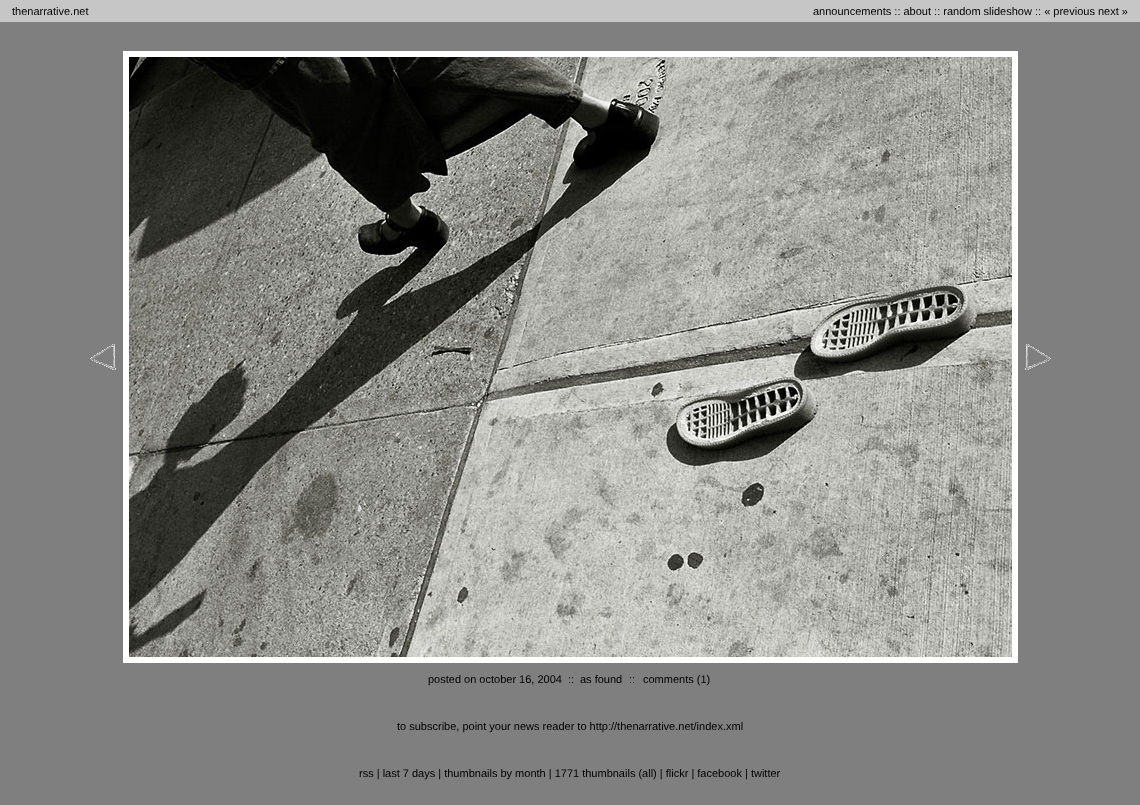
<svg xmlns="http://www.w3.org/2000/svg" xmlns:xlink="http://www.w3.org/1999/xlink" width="1140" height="805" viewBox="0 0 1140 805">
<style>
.cls-1{font:11px Liberation Sans;fill:#000000}
</style>
<rect width="100%" height="100%" fill="#7f7f7f"/>
<rect fill="#c6c6c6" x="0" y="0" width="1140" height="22"/>
<image xlink:href="image0.png" x="90" y="344" width="26" height="26"/>
<rect fill="#ffffff" x="123" y="51" width="895" height="612"/>
<image xlink:href="image1.png" x="129" y="57" width="883" height="600"/>
<image xlink:href="image2.png" x="1025" y="344" width="26" height="26"/>
<text class="cls-1" x="12" y="15">thenarrative.net</text>
<text class="cls-1" x="813" y="15">announcements :: about :: random slideshow :: « previous next »</text>
<text class="cls-1" x="428" y="683">posted on october 16, 2004</text>
<text class="cls-1" x="568" y="683">::</text>
<text class="cls-1" x="580" y="683">as found</text>
<text class="cls-1" x="629" y="683">::</text>
<text class="cls-1" x="643" y="683">comments (1)</text>
<text class="cls-1" x="397" y="730">to subscribe, point your news reader to http://thenarrative.net/index.xml</text>
<text class="cls-1" x="359" y="777">rss | last 7 days | thumbnails by month | 1771 thumbnails (all) | flickr | facebook | twitter</text>
</svg>
